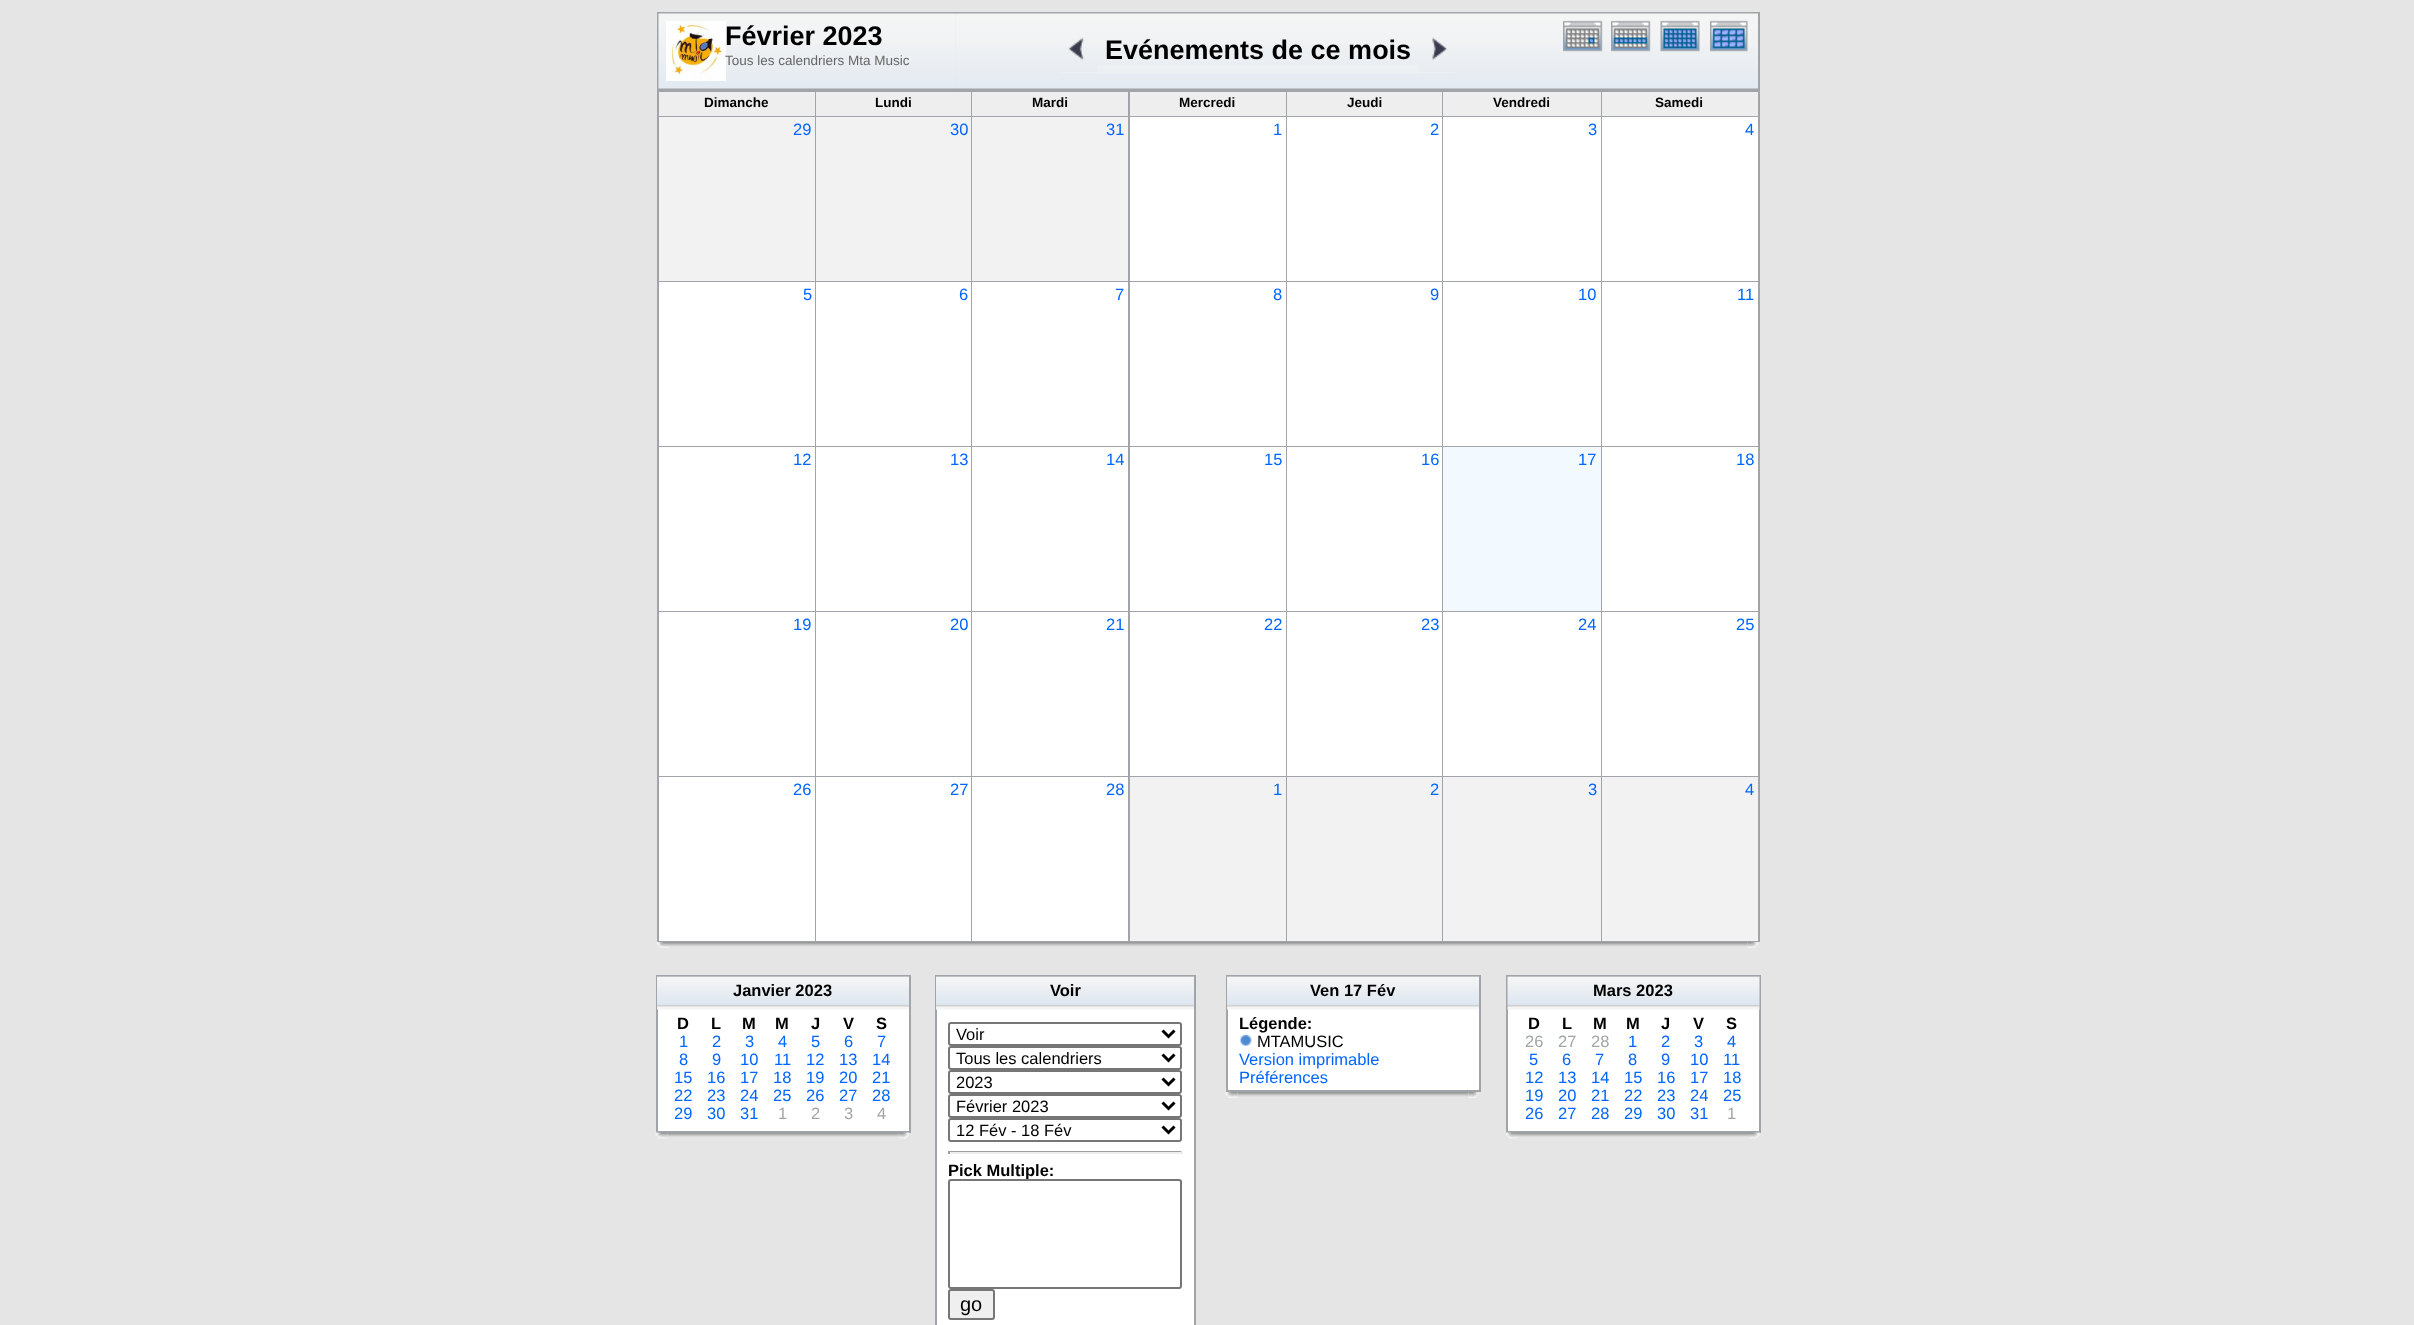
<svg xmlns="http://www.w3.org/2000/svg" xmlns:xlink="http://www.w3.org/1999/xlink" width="2414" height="1325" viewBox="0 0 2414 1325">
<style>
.cls-1{font:bold 27px Liberation Sans;fill:#000000}
.cls-2{font:13.5px Liberation Sans;fill:#666666}
.cls-3{font:bold 13.5px Liberation Sans;fill:#000000}
.cls-4{font:16.5px Liberation Sans;fill:#0066ff}
.cls-5{font:bold 16.5px Liberation Sans;fill:#000000}
.cls-6{font:16.5px Liberation Sans;fill:#a1a5a9}
.cls-7{font:16.5px Liberation Sans;fill:#000000}
.cls-8{font:20px Liberation Sans;fill:#000000}
</style>
<rect width="100%" height="100%" fill="#e5e5e5"/>
<rect fill="none" stroke="#a1a5a9" stroke-width="2" x="658" y="13" width="1101" height="76"/>
<image xlink:href="image0.png" x="658" y="13" width="298" height="76"/>
<image xlink:href="image1.png" x="666" y="21" width="60" height="60"/>
<image xlink:href="image2.png" x="955" y="13" width="608" height="76"/>
<rect fill="#eceff3" x="1062" y="72" width="36" height="1"/>
<image xlink:href="image3.png" x="1068" y="37" width="16" height="24"/>
<rect fill="#ecf0f3" x="1098" y="65" width="321" height="9"/>
<rect fill="#eceff3" x="1419" y="72" width="36" height="1"/>
<image xlink:href="image4.png" x="1432" y="37" width="16" height="24"/>
<image xlink:href="image5.png" x="1563" y="13" width="195" height="76"/>
<image xlink:href="image6.png" x="1563" y="20" width="40" height="32"/>
<image xlink:href="image7.png" x="1611" y="20" width="40" height="32"/>
<image xlink:href="image8.png" x="1660" y="20" width="40" height="32"/>
<image xlink:href="image9.png" x="1710" y="20" width="38" height="32"/>
<rect fill="#a1a5a9" x="657" y="90" width="1103" height="852"/>
<rect fill="#eeeeee" x="659" y="92" width="156" height="24"/>
<rect fill="#eeeeee" x="816" y="92" width="155" height="24"/>
<rect fill="#eeeeee" x="972" y="92" width="156" height="24"/>
<rect fill="#eeeeee" x="1130" y="92" width="156" height="24"/>
<rect fill="#eeeeee" x="1287" y="92" width="155" height="24"/>
<rect fill="#eeeeee" x="1443" y="92" width="158" height="24"/>
<rect fill="#eeeeee" x="1602" y="92" width="156" height="24"/>
<rect fill="#f2f2f2" x="659" y="117" width="156" height="164"/>
<rect fill="#f2f2f2" x="816" y="117" width="155" height="164"/>
<rect fill="#f2f2f2" x="972" y="117" width="156" height="164"/>
<rect fill="#ffffff" x="1130" y="117" width="156" height="164"/>
<rect fill="#ffffff" x="1287" y="117" width="155" height="164"/>
<rect fill="#ffffff" x="1443" y="117" width="158" height="164"/>
<rect fill="#ffffff" x="1602" y="117" width="156" height="164"/>
<rect fill="#ffffff" x="659" y="282" width="156" height="164"/>
<rect fill="#ffffff" x="816" y="282" width="155" height="164"/>
<rect fill="#ffffff" x="972" y="282" width="156" height="164"/>
<rect fill="#ffffff" x="1130" y="282" width="156" height="164"/>
<rect fill="#ffffff" x="1287" y="282" width="155" height="164"/>
<rect fill="#ffffff" x="1443" y="282" width="158" height="164"/>
<rect fill="#ffffff" x="1602" y="282" width="156" height="164"/>
<rect fill="#ffffff" x="659" y="447" width="156" height="164"/>
<rect fill="#ffffff" x="816" y="447" width="155" height="164"/>
<rect fill="#ffffff" x="972" y="447" width="156" height="164"/>
<rect fill="#ffffff" x="1130" y="447" width="156" height="164"/>
<rect fill="#ffffff" x="1287" y="447" width="155" height="164"/>
<rect fill="#f2f9ff" x="1443" y="447" width="158" height="164"/>
<rect fill="#ffffff" x="1602" y="447" width="156" height="164"/>
<rect fill="#ffffff" x="659" y="612" width="156" height="164"/>
<rect fill="#ffffff" x="816" y="612" width="155" height="164"/>
<rect fill="#ffffff" x="972" y="612" width="156" height="164"/>
<rect fill="#ffffff" x="1130" y="612" width="156" height="164"/>
<rect fill="#ffffff" x="1287" y="612" width="155" height="164"/>
<rect fill="#ffffff" x="1443" y="612" width="158" height="164"/>
<rect fill="#ffffff" x="1602" y="612" width="156" height="164"/>
<rect fill="#ffffff" x="659" y="777" width="156" height="164"/>
<rect fill="#ffffff" x="816" y="777" width="155" height="164"/>
<rect fill="#ffffff" x="972" y="777" width="156" height="164"/>
<rect fill="#f2f2f2" x="1130" y="777" width="156" height="164"/>
<rect fill="#f2f2f2" x="1287" y="777" width="155" height="164"/>
<rect fill="#f2f2f2" x="1443" y="777" width="158" height="164"/>
<rect fill="#f2f2f2" x="1602" y="777" width="156" height="164"/>
<image xlink:href="image10.png" x="657" y="942" width="12" height="6"/>
<image xlink:href="image11.png" x="669" y="942" width="1079" height="5"/>
<image xlink:href="image12.png" x="1747" y="942" width="11" height="6"/>
<rect fill="#ffffff" x="658" y="1009" width="251" height="122"/>
<rect fill="none" stroke="#a1a5a9" stroke-width="2" x="657" y="976" width="253" height="156"/>
<image xlink:href="image13.png" x="657" y="976" width="252" height="34"/>
<image xlink:href="image14.png" x="655" y="1132" width="13" height="7"/>
<image xlink:href="image15.png" x="667" y="1132" width="232" height="5"/>
<image xlink:href="image16.png" x="898" y="1132" width="12" height="7"/>
<rect fill="#ffffff" x="937" y="1009" width="257" height="316"/>
<rect fill="none" stroke="#a1a5a9" stroke-width="2" x="936" y="976" width="259" height="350"/>
<image xlink:href="image17.png" x="936" y="976" width="258" height="34"/>
<rect fill="none" stroke="#767676" stroke-width="2" x="949" y="1023" width="232" height="22" rx="2"/>
<path fill="none" stroke="#000000" stroke-width="3" d="M1162.5 1030.5L1168.5 1036.5L1174.5 1030.5"/>
<rect fill="none" stroke="#767676" stroke-width="2" x="949" y="1047" width="232" height="22" rx="2"/>
<path fill="none" stroke="#000000" stroke-width="3" d="M1162.5 1054.5L1168.5 1060.5L1174.5 1054.5"/>
<rect fill="none" stroke="#767676" stroke-width="2" x="949" y="1071" width="232" height="22" rx="2"/>
<path fill="none" stroke="#000000" stroke-width="3" d="M1162.5 1078.5L1168.5 1084.5L1174.5 1078.5"/>
<rect fill="none" stroke="#767676" stroke-width="2" x="949" y="1095" width="232" height="22" rx="2"/>
<path fill="none" stroke="#000000" stroke-width="3" d="M1162.5 1102.5L1168.5 1108.5L1174.5 1102.5"/>
<rect fill="none" stroke="#767676" stroke-width="2" x="949" y="1119" width="232" height="22" rx="2"/>
<path fill="none" stroke="#000000" stroke-width="3" d="M1162.5 1126.5L1168.5 1132.5L1174.5 1126.5"/>
<rect fill="#9f9f9f" x="948" y="1151" width="234" height="1"/>
<rect fill="#eeeeee" x="1181" y="1151" width="2" height="3"/>
<rect fill="#eeeeee" x="948" y="1152" width="234" height="2"/>
<rect fill="#9f9f9f" x="948" y="1151" width="2" height="3"/>
<rect fill="#efefef" stroke="#767676" stroke-width="2" x="949" y="1290" width="45" height="29" rx="2"/>
<rect fill="#ffffff" x="1228" y="1009" width="251" height="81"/>
<rect fill="none" stroke="#a1a5a9" stroke-width="2" x="1227" y="976" width="253" height="115"/>
<image xlink:href="image13.png" x="1227" y="976" width="252" height="34"/>
<image xlink:href="image18.png" x="1240" y="1034" width="12" height="12"/>
<image xlink:href="image19.png" x="1225" y="1092" width="13" height="6"/>
<image xlink:href="image20.png" x="1237" y="1092" width="232" height="5"/>
<image xlink:href="image21.png" x="1468" y="1092" width="11" height="6"/>
<rect fill="#ffffff" x="1508" y="1009" width="251" height="122"/>
<rect fill="none" stroke="#a1a5a9" stroke-width="2" x="1507" y="976" width="253" height="156"/>
<image xlink:href="image22.png" x="1507" y="976" width="253" height="34"/>
<image xlink:href="image23.png" x="1506" y="1132" width="12" height="7"/>
<image xlink:href="image24.png" x="1518" y="1132" width="231" height="5"/>
<image xlink:href="image25.png" x="1749" y="1132" width="11" height="7"/>
<text class="cls-1" x="725" y="45">Février 2023</text>
<text class="cls-2" x="725" y="65">Tous les calendriers Mta Music</text>
<text class="cls-1" x="1105" y="59">Evénements de ce mois</text>
<text class="cls-3" x="704" y="107">Dimanche</text>
<text class="cls-3" x="875" y="107">Lundi</text>
<text class="cls-3" x="1032" y="107">Mardi</text>
<text class="cls-3" x="1179" y="107">Mercredi</text>
<text class="cls-3" x="1347" y="107">Jeudi</text>
<text class="cls-3" x="1493" y="107">Vendredi</text>
<text class="cls-3" x="1655" y="107">Samedi</text>
<text class="cls-4" x="793" y="135">29</text>
<text class="cls-4" x="950" y="135">30</text>
<text class="cls-4" x="1106" y="135">31</text>
<text class="cls-4" x="1273" y="135">1</text>
<text class="cls-4" x="1430" y="135">2</text>
<text class="cls-4" x="1588" y="135">3</text>
<text class="cls-4" x="1745" y="135">4</text>
<text class="cls-4" x="803" y="300">5</text>
<text class="cls-4" x="959" y="300">6</text>
<text class="cls-4" x="1115" y="300">7</text>
<text class="cls-4" x="1273" y="300">8</text>
<text class="cls-4" x="1430" y="300">9</text>
<text class="cls-4" x="1578" y="300">10</text>
<text class="cls-4" x="1737" y="300">11</text>
<text class="cls-4" x="793" y="465">12</text>
<text class="cls-4" x="950" y="465">13</text>
<text class="cls-4" x="1106" y="465">14</text>
<text class="cls-4" x="1264" y="465">15</text>
<text class="cls-4" x="1421" y="465">16</text>
<text class="cls-4" x="1578" y="465">17</text>
<text class="cls-4" x="1736" y="465">18</text>
<text class="cls-4" x="793" y="630">19</text>
<text class="cls-4" x="950" y="630">20</text>
<text class="cls-4" x="1106" y="630">21</text>
<text class="cls-4" x="1264" y="630">22</text>
<text class="cls-4" x="1421" y="630">23</text>
<text class="cls-4" x="1578" y="630">24</text>
<text class="cls-4" x="1736" y="630">25</text>
<text class="cls-4" x="793" y="795">26</text>
<text class="cls-4" x="950" y="795">27</text>
<text class="cls-4" x="1106" y="795">28</text>
<text class="cls-4" x="1273" y="795">1</text>
<text class="cls-4" x="1430" y="795">2</text>
<text class="cls-4" x="1588" y="795">3</text>
<text class="cls-4" x="1745" y="795">4</text>
<text class="cls-5" x="733" y="996">Janvier 2023</text>
<text class="cls-5" x="677" y="1029">D</text>
<text class="cls-5" x="711" y="1029">L</text>
<text class="cls-5" x="742" y="1029">M</text>
<text class="cls-5" x="775" y="1029">M</text>
<text class="cls-5" x="811" y="1029">J</text>
<text class="cls-5" x="843" y="1029">V</text>
<text class="cls-5" x="876" y="1029">S</text>
<text class="cls-4" x="679" y="1047">1</text>
<text class="cls-4" x="712" y="1047">2</text>
<text class="cls-4" x="745" y="1047">3</text>
<text class="cls-4" x="778" y="1047">4</text>
<text class="cls-4" x="811" y="1047">5</text>
<text class="cls-4" x="844" y="1047">6</text>
<text class="cls-4" x="877" y="1047">7</text>
<text class="cls-4" x="679" y="1065">8</text>
<text class="cls-4" x="712" y="1065">9</text>
<text class="cls-4" x="740" y="1065">10</text>
<text class="cls-4" x="774" y="1065">11</text>
<text class="cls-4" x="806" y="1065">12</text>
<text class="cls-4" x="839" y="1065">13</text>
<text class="cls-4" x="872" y="1065">14</text>
<text class="cls-4" x="674" y="1083">15</text>
<text class="cls-4" x="707" y="1083">16</text>
<text class="cls-4" x="740" y="1083">17</text>
<text class="cls-4" x="773" y="1083">18</text>
<text class="cls-4" x="806" y="1083">19</text>
<text class="cls-4" x="839" y="1083">20</text>
<text class="cls-4" x="872" y="1083">21</text>
<text class="cls-4" x="674" y="1101">22</text>
<text class="cls-4" x="707" y="1101">23</text>
<text class="cls-4" x="740" y="1101">24</text>
<text class="cls-4" x="773" y="1101">25</text>
<text class="cls-4" x="806" y="1101">26</text>
<text class="cls-4" x="839" y="1101">27</text>
<text class="cls-4" x="872" y="1101">28</text>
<text class="cls-4" x="674" y="1119">29</text>
<text class="cls-4" x="707" y="1119">30</text>
<text class="cls-4" x="740" y="1119">31</text>
<text class="cls-6" x="778" y="1119">1</text>
<text class="cls-6" x="811" y="1119">2</text>
<text class="cls-6" x="844" y="1119">3</text>
<text class="cls-6" x="877" y="1119">4</text>
<text class="cls-5" x="1050" y="996">Voir</text>
<text class="cls-7"><tspan x="956" y="1040">Voir</tspan><tspan x="956" y="1064">Tous les calendriers</tspan><tspan x="956" y="1088">2023</tspan><tspan x="956" y="1112">Février 2023</tspan><tspan x="956" y="1136">12 Fév - 18 Fév</tspan></text>
<text class="cls-5" x="948" y="1176">Pick Multiple:</text>
<rect fill="#ffffff" stroke="#767676" stroke-width="2" x="949" y="1180" width="232" height="108" rx="2"/>
<text class="cls-8" x="960" y="1311">go</text>
<text class="cls-5" x="1310" y="996">Ven 17 Fév</text>
<text class="cls-5" x="1239" y="1029">Légende:</text>
<text class="cls-7" x="1257" y="1047">MTAMUSIC</text>
<text class="cls-4"><tspan x="1239" y="1065">Version imprimable</tspan><tspan x="1239" y="1083">Préférences</tspan></text>
<text class="cls-5" x="1593" y="996">Mars 2023</text>
<text class="cls-5" x="1528" y="1029">D</text>
<text class="cls-5" x="1562" y="1029">L</text>
<text class="cls-5" x="1593" y="1029">M</text>
<text class="cls-5" x="1626" y="1029">M</text>
<text class="cls-5" x="1661" y="1029">J</text>
<text class="cls-5" x="1693" y="1029">V</text>
<text class="cls-5" x="1726" y="1029">S</text>
<text class="cls-6" x="1525" y="1047">26</text>
<text class="cls-6" x="1558" y="1047">27</text>
<text class="cls-6" x="1591" y="1047">28</text>
<text class="cls-4" x="1628" y="1047">1</text>
<text class="cls-4" x="1661" y="1047">2</text>
<text class="cls-4" x="1694" y="1047">3</text>
<text class="cls-4" x="1727" y="1047">4</text>
<text class="cls-4" x="1529" y="1065">5</text>
<text class="cls-4" x="1562" y="1065">6</text>
<text class="cls-4" x="1595" y="1065">7</text>
<text class="cls-4" x="1628" y="1065">8</text>
<text class="cls-4" x="1661" y="1065">9</text>
<text class="cls-4" x="1690" y="1065">10</text>
<text class="cls-4" x="1723" y="1065">11</text>
<text class="cls-4" x="1525" y="1083">12</text>
<text class="cls-4" x="1558" y="1083">13</text>
<text class="cls-4" x="1591" y="1083">14</text>
<text class="cls-4" x="1624" y="1083">15</text>
<text class="cls-4" x="1657" y="1083">16</text>
<text class="cls-4" x="1690" y="1083">17</text>
<text class="cls-4" x="1723" y="1083">18</text>
<text class="cls-4" x="1525" y="1101">19</text>
<text class="cls-4" x="1558" y="1101">20</text>
<text class="cls-4" x="1591" y="1101">21</text>
<text class="cls-4" x="1624" y="1101">22</text>
<text class="cls-4" x="1657" y="1101">23</text>
<text class="cls-4" x="1690" y="1101">24</text>
<text class="cls-4" x="1723" y="1101">25</text>
<text class="cls-4" x="1525" y="1119">26</text>
<text class="cls-4" x="1558" y="1119">27</text>
<text class="cls-4" x="1591" y="1119">28</text>
<text class="cls-4" x="1624" y="1119">29</text>
<text class="cls-4" x="1657" y="1119">30</text>
<text class="cls-4" x="1690" y="1119">31</text>
<text class="cls-6" x="1727" y="1119">1</text>
</svg>
